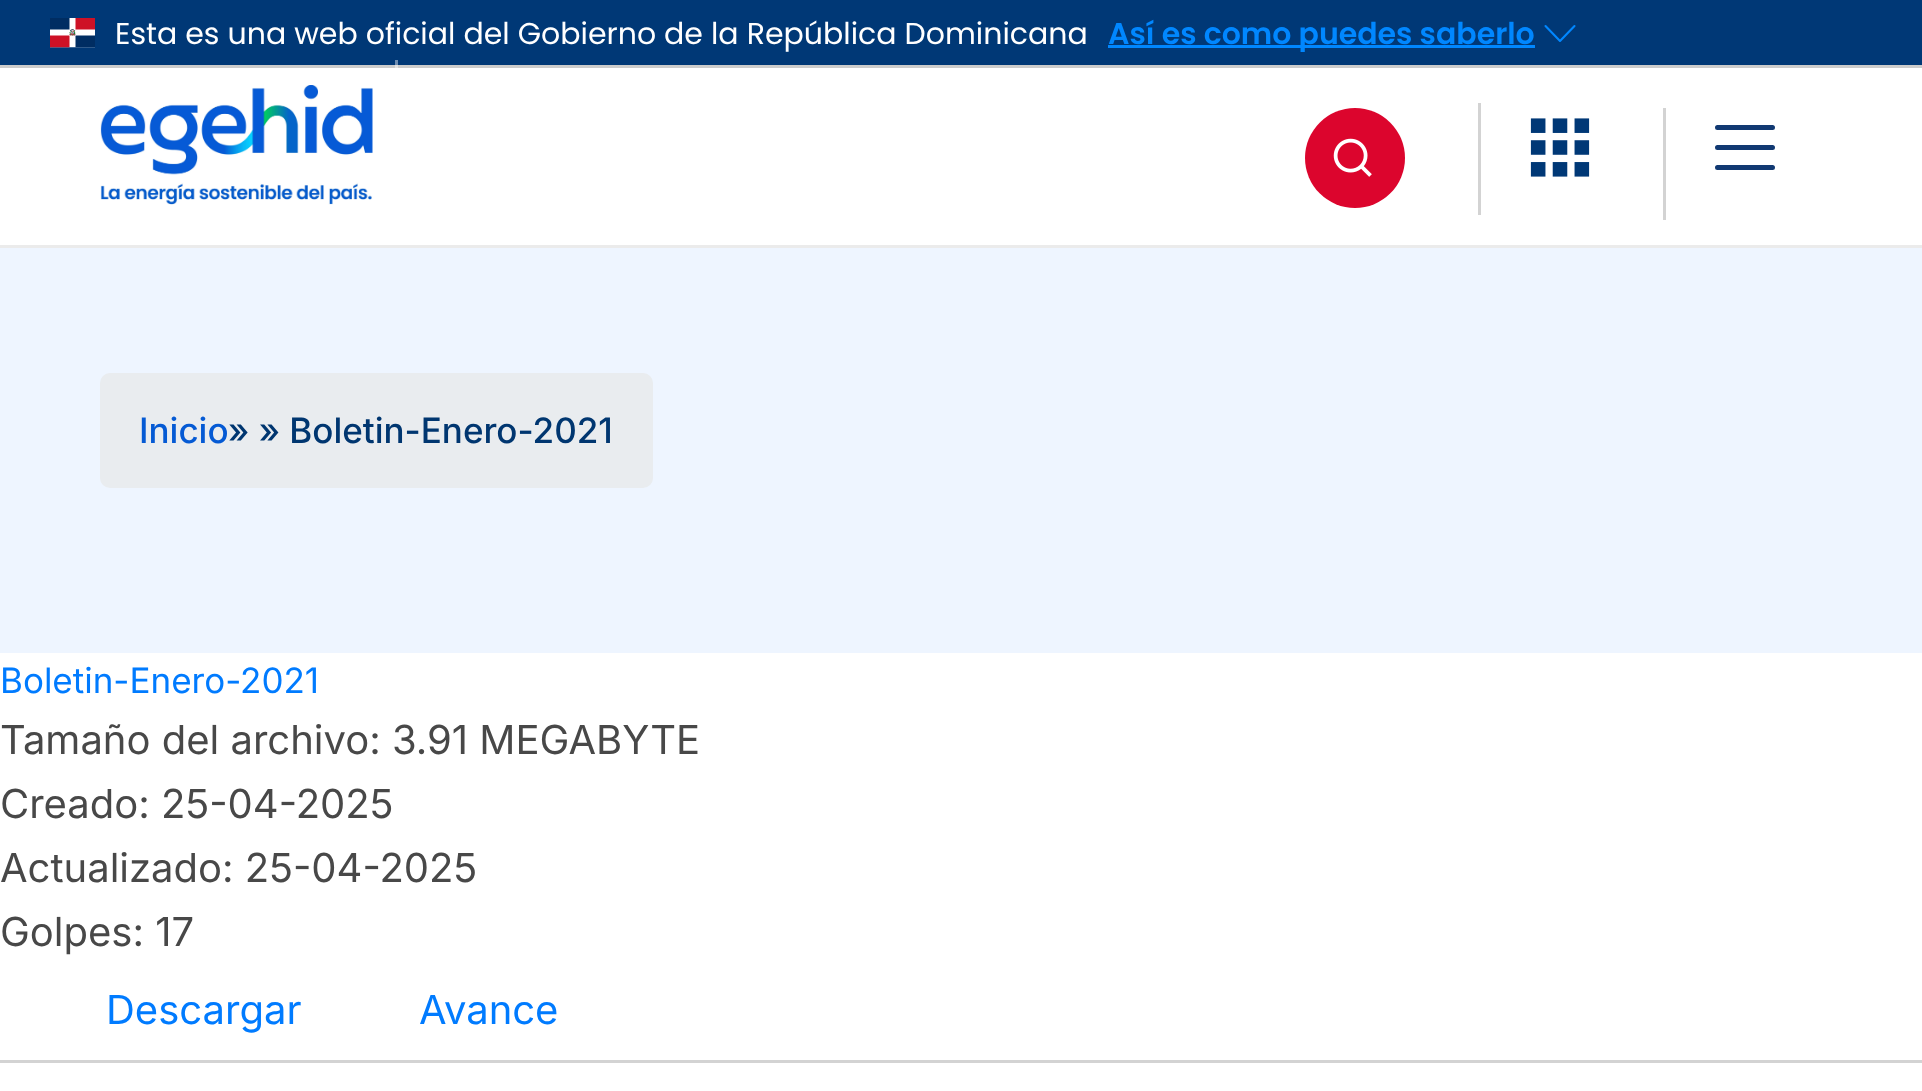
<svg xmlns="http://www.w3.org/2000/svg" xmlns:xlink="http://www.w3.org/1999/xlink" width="1922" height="1091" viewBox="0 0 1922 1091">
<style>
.cls-1{font:30px Poppins;fill:#ffffff}
.cls-2{font:600 30px Poppins;fill:#0087ff}
.cls-3{font:500 35px Inter;fill:#055ad4}
.cls-4{font:500 35px Inter;fill:#003670}
.cls-5{font:35px Inter;fill:#007bff}
.cls-6{font:40px Inter;fill:#484848}
.cls-7{font:40px Inter;fill:#007bff}
</style>
<rect width="100%" height="100%" fill="#ffffff"/>
<rect fill="#003876" x="0" y="0" width="1922" height="65"/>
<rect fill="#cccccc" x="0" y="65" width="1922" height="3"/>
<image xlink:href="image0.png" x="50" y="18" width="45" height="30"/>
<rect fill="#0087ff" x="1108" y="45" width="427" height="3"/>
<path fill="none" stroke="#0087ff" stroke-width="2.1" stroke-linecap="round" stroke-linejoin="round" d="M1574.5 26L1560 41L1545.5 26"/>
<rect fill="#ebebeb" x="0" y="245" width="1922" height="3"/>
<rect fill="#ffffff" fill-opacity="0.43" x="395" y="60" width="3" height="8"/>
<image xlink:href="image1.png" x="100" y="85" width="273" height="120"/>
<circle fill="#dc052d" cx="1355" cy="158" r="50"/>
<image xlink:href="image2.png" x="1333" y="138" width="39" height="39"/>
<rect fill="#d3d3d3" x="1478" y="103" width="3" height="112"/>
<image xlink:href="image3.png" x="1530" y="118" width="60" height="59"/>
<rect fill="#d3d3d3" x="1663" y="108" width="3" height="112"/>
<path fill="none" stroke="#113972" stroke-width="5" stroke-linecap="round" d="M1717.5 127.5H1772.5M1717.5 147.5H1772.5M1717.5 167.5H1772.5"/>
<rect fill="#eef5ff" x="0" y="248" width="1922" height="405"/>
<rect fill="#e9ecef" x="100" y="373" width="553" height="115" rx="10"/>
<rect fill="#d3d3d3" x="0" y="1060" width="1922" height="3"/>
<text class="cls-1" x="115" y="44">Esta es una web oficial del Gobierno de la República Dominicana</text>
<text class="cls-2" x="1108" y="44">Así es como puedes saberlo</text>
<text class="cls-3" x="139" y="443">Inicio</text>
<text class="cls-4" x="228" y="443">» » Boletin-Enero-2021</text>
<text class="cls-5" x="0" y="693">Boletin-Enero-2021</text>
<text class="cls-6"><tspan x="0" y="754">Tamaño del archivo: 3.91 MEGABYTE</tspan><tspan x="0" y="818">Creado: 25-04-2025</tspan><tspan x="0" y="882">Actualizado: 25-04-2025</tspan><tspan x="0" y="946">Golpes: 17</tspan></text>
<text class="cls-7" x="106" y="1024">Descargar</text>
<text class="cls-7" x="419" y="1024">Avance</text>
</svg>
